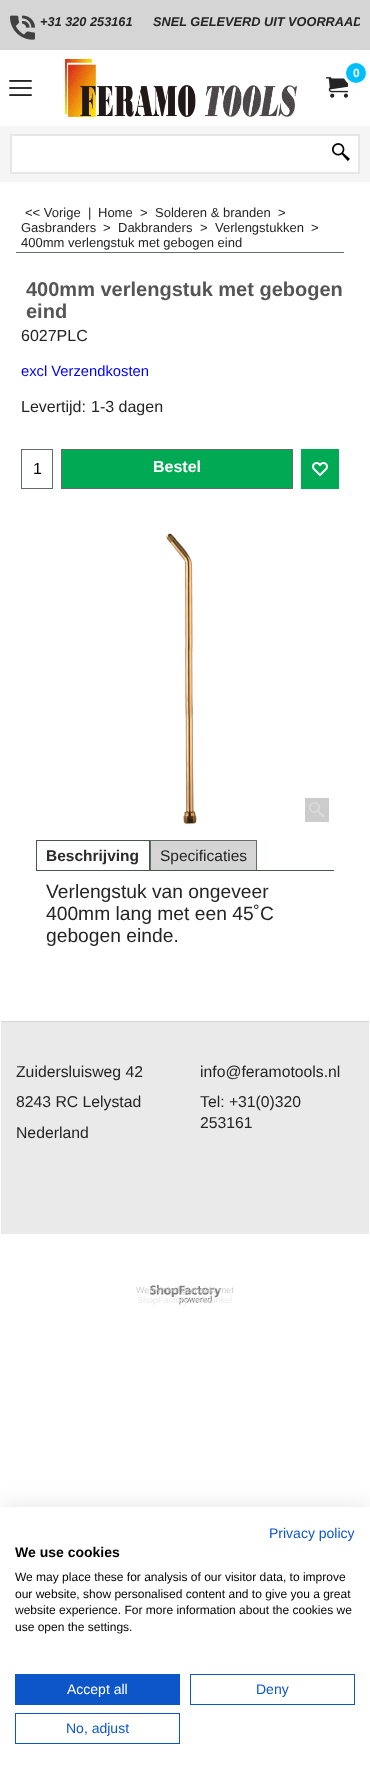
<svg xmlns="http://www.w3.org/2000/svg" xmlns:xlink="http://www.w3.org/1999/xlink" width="370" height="1771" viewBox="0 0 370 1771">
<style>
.cls-1{font:italic bold 12.75px Liberation Sans;fill:#242424}
.cls-2{font:bold 12px Liberation Sans;fill:#ffffff}
.cls-3{font:13px Liberation Sans;fill:#242424}
.cls-4{font:bold 20px Liberation Sans;fill:#555555}
.cls-5{font:16px Liberation Sans;fill:#242424}
.cls-6{font:14.75px Liberation Sans;fill:#0000ff}
.cls-7{font:16px Liberation Sans;fill:#000000}
.cls-8{font:bold 16px Liberation Sans;fill:#ffffff}
.cls-9{font:bold 15.5px Liberation Sans;fill:#2a2a2a}
.cls-10{font:15.5px Liberation Sans;fill:#242424}
.cls-11{font:19.25px Liberation Sans;fill:#242424}
.cls-12{font:15.75px Liberation Sans;fill:#242424}
.cls-13{font:9px Liberation Sans;fill:#cecece}
.cls-14{font:9px Liberation Sans;fill:#eaeaea}
.cls-15{font:14px Liberation Sans;fill:#0d56c9}
.cls-16{font:bold 14px Liberation Sans;fill:#000000}
.cls-17{font:12px Liberation Sans;fill:#000000}
.cls-18{font:14px Liberation Sans;fill:#ffffff}
</style>
<defs>
<clipPath id="clip1"><rect x="10" y="0" width="350" height="50"/></clipPath>
</defs>
<rect width="100%" height="100%" fill="#ffffff"/>
<rect fill="#d5d5d5" x="0" y="0" width="370" height="50"/>
<image xlink:href="image0.png" x="10" y="15" width="25" height="25"/>
<image xlink:href="image1.png" x="65" y="59" width="232" height="58"/>
<image xlink:href="image2.png" x="326" y="77" width="22" height="21"/>
<circle fill="#00bfff" stroke="#ffffff" stroke-width="3" cx="356" cy="73" r="11.5"/>
<image xlink:href="image3.png" x="9" y="80" width="23" height="16"/>
<rect fill="#f5f5f6" x="0" y="126" width="370" height="56"/>
<rect fill="#ffffff" stroke="#e6e6e6" stroke-width="2" x="11" y="135" width="348" height="38"/>
<image xlink:href="image4.png" x="332" y="143" width="18" height="18"/>
<rect fill="#626d66" x="16" y="252" width="328" height="1"/>
<rect fill="none" stroke="#626d66" x="21.5" y="449.5" width="31" height="39"/>
<rect fill="#00aa54" stroke="#626d66" x="61.5" y="449.5" width="231" height="39"/>
<rect fill="#00aa54" x="301" y="449" width="38" height="40"/>
<image xlink:href="image5.png" x="312" y="462" width="16" height="14"/>
<image xlink:href="image6.png" x="166" y="533" width="31" height="292"/>
<rect fill="#cccccc" x="305" y="798" width="24" height="24"/>
<image xlink:href="image7.png" x="309" y="802" width="16" height="16"/>
<rect fill="#48554d" x="36" y="840" width="114" height="1"/>
<rect fill="#48554d" x="36" y="870" width="298" height="1"/>
<path fill="#48554d" d="M150 840V871L149 870V841Z"/>
<path fill="#48554d" d="M36 871V840L37 841V870Z"/>
<rect fill="#d5d5d5" x="151" y="841" width="105" height="29"/>
<rect fill="#626d66" x="150" y="840" width="107" height="1"/>
<rect fill="#626d66" x="256" y="840" width="1" height="30"/>
<rect fill="#626d66" x="150" y="840" width="1" height="30"/>
<rect fill="#d5d5d5" x="1" y="1021" width="368" height="1"/>
<rect fill="#eaeaea" x="1" y="1022" width="368" height="212"/>
<image xlink:href="image8.png" x="150" y="1285" width="71" height="20"/>
<rect fill="#000000" fill-opacity="0.1" filter="blur(12px)" x="0" y="1507" width="370" height="264"/>
<rect fill="#ffffff" x="0" y="1507" width="370" height="264"/>
<rect fill="#0d56c9" x="15" y="1674" width="165" height="31"/>
<rect fill="none" stroke="#0d56c9" x="190.5" y="1674.5" width="164" height="30"/>
<rect fill="none" stroke="#0d56c9" x="15.5" y="1713.5" width="164" height="30"/>
<text class="cls-1" x="40" y="26">+31 320 253161</text>
<g clip-path="url(#clip1)">
<text class="cls-1" x="153" y="26">SNEL GELEVERD UIT VOORRAAD</text>
</g>
<text class="cls-2" x="353" y="77">0</text>
<text class="cls-3" x="25" y="217">&lt;&lt; Vorige</text>
<text class="cls-3" x="88" y="217">|</text>
<text class="cls-3" x="98" y="217">Home</text>
<text class="cls-3" x="140" y="217">&gt;</text>
<text class="cls-3" x="155" y="217">Solderen &amp; branden</text>
<text class="cls-3" x="278" y="217">&gt;</text>
<text class="cls-3" x="21" y="232">Gasbranders</text>
<text class="cls-3" x="103" y="232">&gt;</text>
<text class="cls-3" x="118" y="232">Dakbranders</text>
<text class="cls-3" x="200" y="232">&gt;</text>
<text class="cls-3" x="215" y="232">Verlengstukken</text>
<text class="cls-3" x="311" y="232">&gt;</text>
<text class="cls-3" x="21" y="247">400mm verlengstuk met gebogen eind</text>
<text class="cls-4"><tspan x="26" y="296">400mm verlengstuk met gebogen</tspan><tspan x="26" y="318">eind</tspan></text>
<text class="cls-5" x="21" y="341">6027PLC</text>
<text class="cls-6" x="21" y="376">excl Verzendkosten</text>
<text class="cls-5" x="21" y="412">Levertijd:</text>
<text class="cls-5" x="91" y="412">1-3 dagen</text>
<text class="cls-7" x="33" y="474">1</text>
<text class="cls-8" x="153" y="472">Bestel</text>
<text class="cls-9" x="46" y="861">Beschrijving</text>
<text class="cls-10" x="160" y="861">Specificaties</text>
<text class="cls-11"><tspan x="46" y="898">Verlengstuk van ongeveer</tspan><tspan x="46" y="920">400mm lang met een 45˚C</tspan><tspan x="46" y="942">gebogen einde.</tspan></text>
<text class="cls-12"><tspan x="16" y="1077">Zuidersluisweg 42</tspan><tspan x="16" y="1107">8243 RC Lelystad</tspan><tspan x="16" y="1138">Nederland</tspan></text>
<text class="cls-12"><tspan x="200" y="1077">info@feramotools.nl</tspan><tspan x="200" y="1107">Tel: +31(0)320</tspan><tspan x="200" y="1128">253161</tspan></text>
<text class="cls-13" x="136" y="1293">Webwinkel gemaakt met</text>
<text class="cls-14" x="137" y="1303">ShopFactory webwinkel</text>
<text class="cls-15" x="269" y="1538">Privacy policy</text>
<text class="cls-16" x="15" y="1557">We use cookies</text>
<text class="cls-17"><tspan x="15" y="1581">We may place these for analysis of our visitor data, to improve</tspan><tspan x="15" y="1598">our website, show personalised content and to give you a great</tspan><tspan x="15" y="1614">website experience. For more information about the cookies we</tspan><tspan x="15" y="1631">use open the settings.</tspan></text>
<text class="cls-18" x="67" y="1694">Accept all</text>
<text class="cls-15" x="256" y="1694">Deny</text>
<text class="cls-15" x="66" y="1733">No, adjust</text>
</svg>
